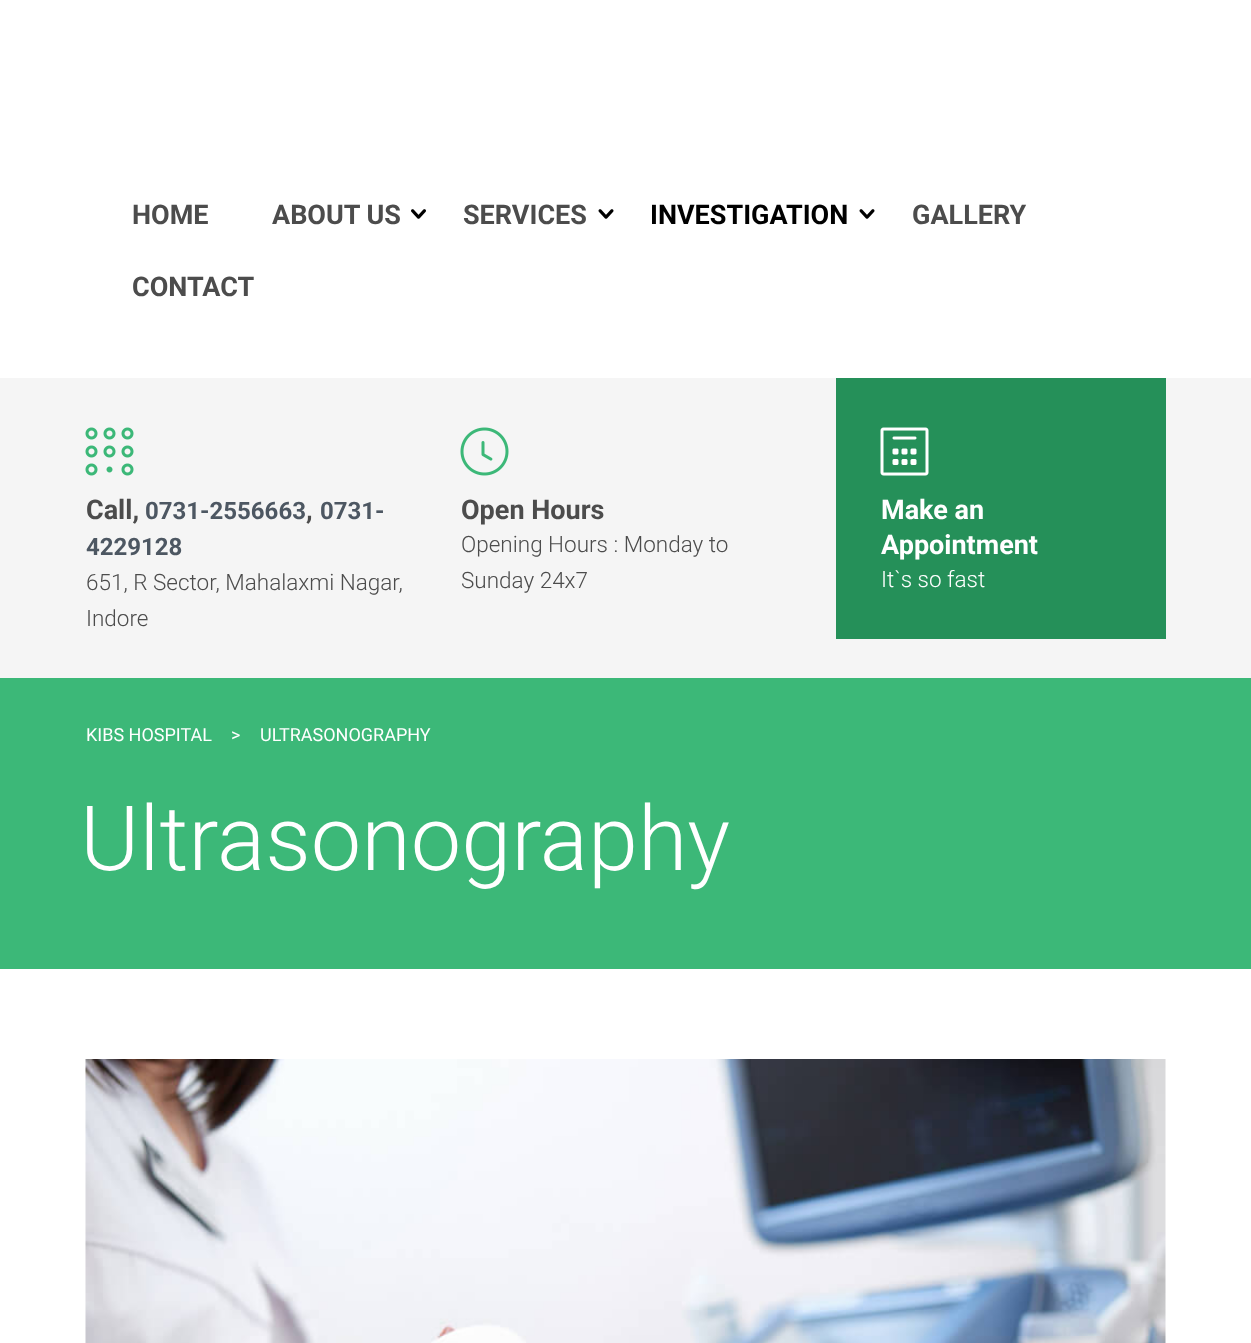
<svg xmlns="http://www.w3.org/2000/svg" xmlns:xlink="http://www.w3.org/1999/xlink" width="1251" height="1343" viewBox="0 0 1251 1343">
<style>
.cls-1{font:bold 27px Roboto;fill:#4c4c4c}
.cls-2{font:bold 27px Roboto;fill:#000000}
.cls-3{font:bold 24px Roboto;fill:#4d5762}
.cls-4{font:300 22.5px Roboto;fill:#4c4c4c}
.cls-5{font:bold 27px Roboto;fill:#ffffff}
.cls-6{font:300 22.5px Roboto;fill:#ffffff}
.cls-7{font:18px Roboto;fill:#ffffff}
.cls-8{font:300 90px Roboto;fill:#ffffff}
</style>
<rect width="100%" height="100%" fill="#ffffff"/>
<image xlink:href="image0.png" x="411" y="209" width="15" height="10"/>
<image xlink:href="image1.png" x="598" y="209" width="16" height="10"/>
<image xlink:href="image1.png" x="859" y="209" width="16" height="10"/>
<rect fill="#f5f5f5" x="0" y="378" width="1251" height="300"/>
<image xlink:href="image2.png" x="85" y="427" width="49" height="49"/>
<image xlink:href="image3.png" x="460" y="427" width="49" height="49"/>
<rect fill="#259059" x="836" y="378" width="330" height="261"/>
<image xlink:href="image4.png" x="880" y="427" width="49" height="49"/>
<rect fill="#3cb878" x="0" y="678" width="1251" height="291"/>
<image xlink:href="image5.png" x="85" y="1059" width="1081" height="284"/>
<text class="cls-1" x="132" y="224">HOME</text>
<text class="cls-1" x="272" y="224">ABOUT US</text>
<text class="cls-1" x="463" y="224">SERVICES</text>
<text class="cls-2" x="650" y="224">INVESTIGATION</text>
<text class="cls-1" x="912" y="224">GALLERY</text>
<text class="cls-1" x="132" y="296">CONTACT</text>
<text class="cls-1" x="86" y="519">Call,</text>
<text class="cls-3" x="145" y="519">0731-2556663</text>
<text class="cls-1" x="306" y="519">,</text>
<text class="cls-3" x="320" y="519">0731-</text>
<text class="cls-3" x="86" y="555">4229128</text>
<text class="cls-4"><tspan x="86" y="590">651, R Sector, Mahalaxmi Nagar,</tspan><tspan x="86" y="626">Indore</tspan></text>
<text class="cls-1" x="461" y="519">Open Hours</text>
<text class="cls-4"><tspan x="461" y="552">Opening Hours : Monday to</tspan><tspan x="461" y="588">Sunday 24x7</tspan></text>
<text class="cls-5"><tspan x="881" y="519">Make an</tspan><tspan x="881" y="554">Appointment</tspan></text>
<text class="cls-6" x="881" y="587">It`s so fast</text>
<text class="cls-7" x="86" y="741">KIBS HOSPITAL</text>
<text class="cls-7" x="231" y="741">&gt;</text>
<text class="cls-7" x="260" y="741">ULTRASONOGRAPHY</text>
<text class="cls-8" x="80" y="870">Ultrasonography</text>
</svg>
